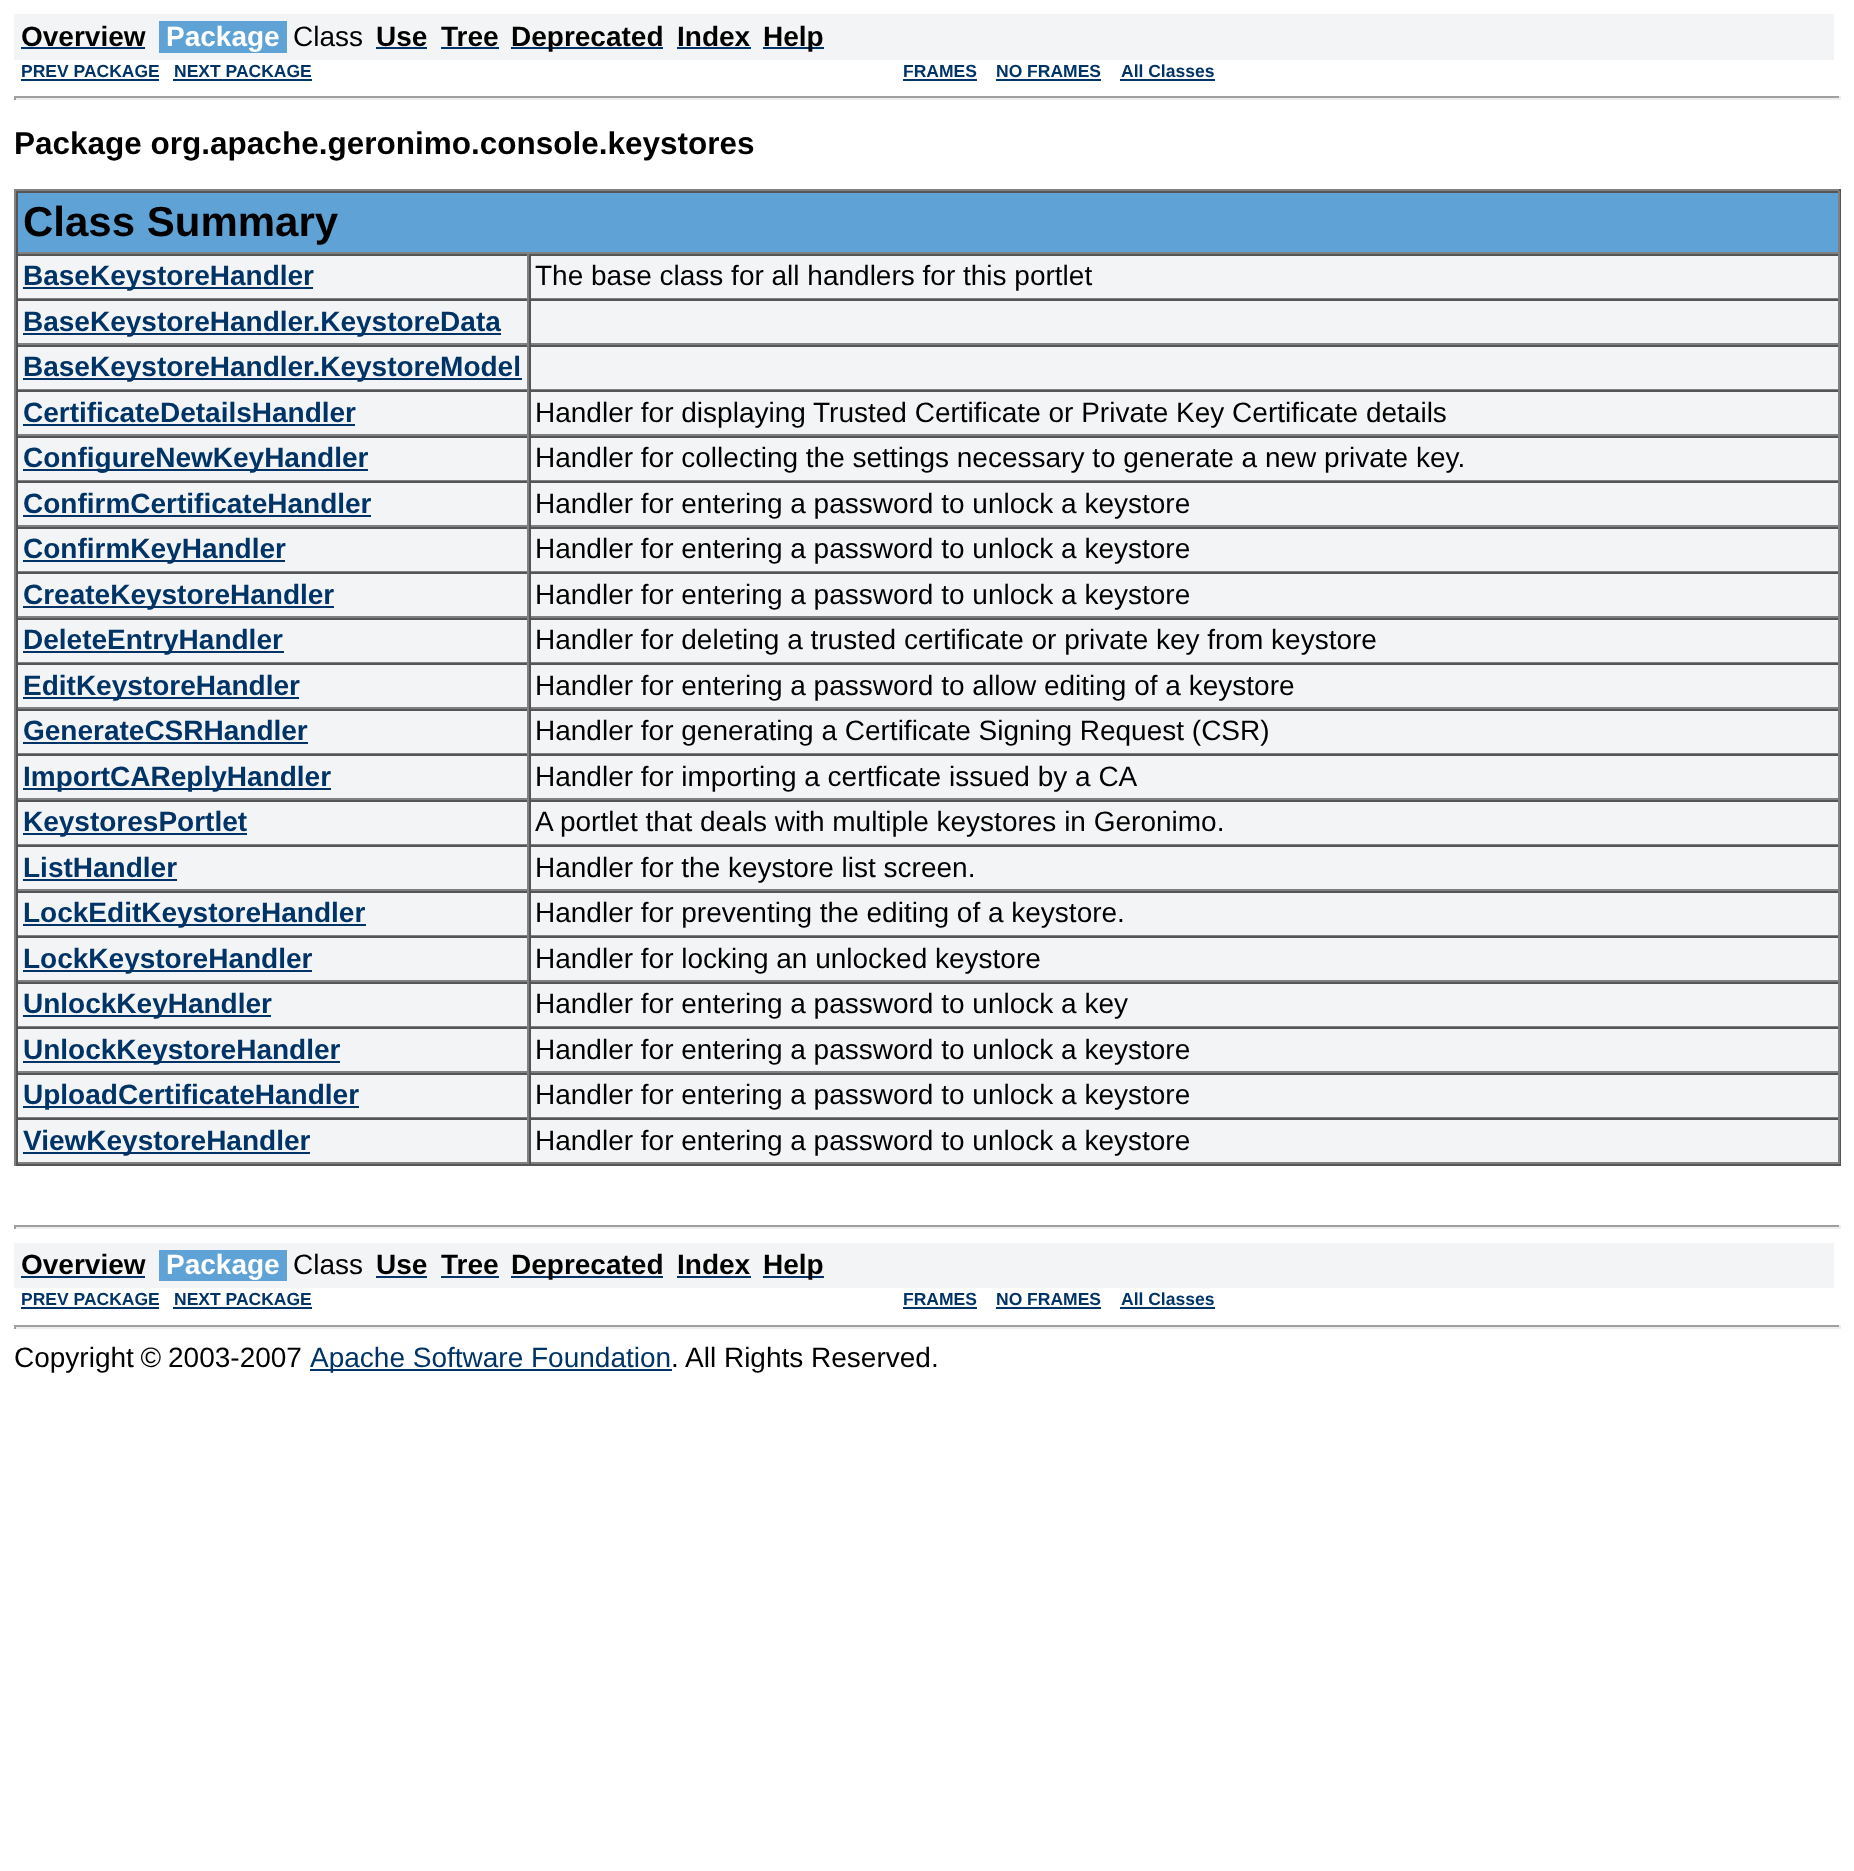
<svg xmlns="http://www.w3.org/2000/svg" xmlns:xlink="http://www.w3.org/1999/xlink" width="1854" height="1871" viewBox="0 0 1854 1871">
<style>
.cls-1{font:bold 28px Liberation Sans;fill:#000000}
.cls-2{font:bold 28px Liberation Sans;fill:#ffffff}
.cls-3{font:28px Liberation Sans;fill:#000000}
.cls-4{font:bold 17.5px Liberation Sans;fill:#003366}
.cls-5{font:bold 31.5px Liberation Sans;fill:#000000}
.cls-6{font:bold 42px Liberation Sans;fill:#000000}
.cls-7{font:bold 28px Liberation Sans;fill:#003366}
.cls-8{font:28px Liberation Sans;fill:#003366}
</style>
<rect width="100%" height="100%" fill="#ffffff"/>
<rect fill="#f3f4f5" x="14" y="14" width="1820" height="46"/>
<rect fill="#003366" x="21" y="47" width="124" height="2"/>
<rect fill="#5fa3d6" x="159" y="21" width="128" height="32"/>
<rect fill="#003366" x="376" y="47" width="51" height="2"/>
<rect fill="#003366" x="441" y="47" width="58" height="2"/>
<rect fill="#003366" x="511" y="47" width="152" height="2"/>
<rect fill="#003366" x="677" y="47" width="74" height="2"/>
<rect fill="#003366" x="763" y="47" width="61" height="2"/>
<rect fill="#003366" x="21" y="79" width="138" height="2"/>
<rect fill="#003366" x="173" y="79" width="139" height="2"/>
<rect fill="#003366" x="903" y="79" width="74" height="2"/>
<rect fill="#003366" x="996" y="79" width="105" height="2"/>
<rect fill="#003366" x="1120" y="79" width="95" height="2"/>
<rect fill="#9f9f9f" x="14" y="96" width="1827" height="2"/>
<rect fill="#eeeeee" x="1839" y="96" width="2" height="4"/>
<rect fill="#eeeeee" x="14" y="98" width="1827" height="2"/>
<rect fill="#9f9f9f" x="14" y="96" width="2" height="4"/>
<rect fill="#808080" x="14" y="189" width="1827" height="2"/>
<rect fill="#555555" x="1839" y="189" width="2" height="977"/>
<rect fill="#555555" x="14" y="1164" width="1827" height="2"/>
<rect fill="#808080" x="14" y="189" width="2" height="977"/>
<rect fill="#5fa3d6" x="18" y="193" width="1820" height="59"/>
<rect fill="#555555" x="16" y="191" width="1823" height="2"/>
<rect fill="#808080" x="1838" y="191" width="2" height="63"/>
<rect fill="#808080" x="16" y="252" width="1823" height="2"/>
<rect fill="#555555" x="16" y="191" width="2" height="63"/>
<rect fill="#f3f4f5" x="18" y="256" width="1820" height="42"/>
<rect fill="#555555" x="16" y="254" width="1823" height="2"/>
<rect fill="#808080" x="527" y="254" width="2" height="45"/>
<rect fill="#808080" x="16" y="298" width="513" height="1"/>
<rect fill="#555555" x="16" y="254" width="2" height="45"/>
<rect fill="#003366" x="23" y="287" width="290" height="2"/>
<rect fill="#808080" x="1838" y="254" width="2" height="45"/>
<rect fill="#808080" x="529" y="298" width="1310" height="1"/>
<rect fill="#555555" x="529" y="254" width="2" height="45"/>
<rect fill="#f3f4f5" x="18" y="301" width="1820" height="42"/>
<rect fill="#555555" x="16" y="299" width="1823" height="2"/>
<rect fill="#808080" x="527" y="299" width="2" height="46"/>
<rect fill="#808080" x="16" y="343" width="513" height="2"/>
<rect fill="#555555" x="16" y="299" width="2" height="46"/>
<rect fill="#003366" x="23" y="333" width="478" height="2"/>
<rect fill="#808080" x="1838" y="299" width="2" height="46"/>
<rect fill="#808080" x="529" y="343" width="1310" height="2"/>
<rect fill="#555555" x="529" y="299" width="2" height="46"/>
<rect fill="#f3f4f5" x="18" y="347" width="1820" height="42"/>
<rect fill="#555555" x="16" y="345" width="1823" height="2"/>
<rect fill="#808080" x="527" y="345" width="2" height="45"/>
<rect fill="#808080" x="16" y="389" width="513" height="1"/>
<rect fill="#555555" x="16" y="345" width="2" height="45"/>
<rect fill="#003366" x="23" y="378" width="499" height="2"/>
<rect fill="#808080" x="1838" y="345" width="2" height="45"/>
<rect fill="#808080" x="529" y="389" width="1310" height="1"/>
<rect fill="#555555" x="529" y="345" width="2" height="45"/>
<rect fill="#f3f4f5" x="18" y="392" width="1820" height="42"/>
<rect fill="#555555" x="16" y="390" width="1823" height="2"/>
<rect fill="#808080" x="527" y="390" width="2" height="46"/>
<rect fill="#808080" x="16" y="434" width="513" height="2"/>
<rect fill="#555555" x="16" y="390" width="2" height="46"/>
<rect fill="#003366" x="23" y="424" width="332" height="2"/>
<rect fill="#808080" x="1838" y="390" width="2" height="46"/>
<rect fill="#808080" x="529" y="434" width="1310" height="2"/>
<rect fill="#555555" x="529" y="390" width="2" height="46"/>
<rect fill="#f3f4f5" x="18" y="438" width="1820" height="42"/>
<rect fill="#555555" x="16" y="436" width="1823" height="2"/>
<rect fill="#808080" x="527" y="436" width="2" height="45"/>
<rect fill="#808080" x="16" y="480" width="513" height="1"/>
<rect fill="#555555" x="16" y="436" width="2" height="45"/>
<rect fill="#003366" x="23" y="469" width="345" height="2"/>
<rect fill="#808080" x="1838" y="436" width="2" height="45"/>
<rect fill="#808080" x="529" y="480" width="1310" height="1"/>
<rect fill="#555555" x="529" y="436" width="2" height="45"/>
<rect fill="#f3f4f5" x="18" y="483" width="1820" height="42"/>
<rect fill="#555555" x="16" y="481" width="1823" height="2"/>
<rect fill="#808080" x="527" y="481" width="2" height="46"/>
<rect fill="#808080" x="16" y="525" width="513" height="2"/>
<rect fill="#555555" x="16" y="481" width="2" height="46"/>
<rect fill="#003366" x="23" y="515" width="348" height="2"/>
<rect fill="#808080" x="1838" y="481" width="2" height="46"/>
<rect fill="#808080" x="529" y="525" width="1310" height="2"/>
<rect fill="#555555" x="529" y="481" width="2" height="46"/>
<rect fill="#f3f4f5" x="18" y="529" width="1820" height="42"/>
<rect fill="#555555" x="16" y="527" width="1823" height="2"/>
<rect fill="#808080" x="527" y="527" width="2" height="45"/>
<rect fill="#808080" x="16" y="571" width="513" height="1"/>
<rect fill="#555555" x="16" y="527" width="2" height="45"/>
<rect fill="#003366" x="23" y="560" width="262" height="2"/>
<rect fill="#808080" x="1838" y="527" width="2" height="45"/>
<rect fill="#808080" x="529" y="571" width="1310" height="1"/>
<rect fill="#555555" x="529" y="527" width="2" height="45"/>
<rect fill="#f3f4f5" x="18" y="574" width="1820" height="42"/>
<rect fill="#555555" x="16" y="572" width="1823" height="2"/>
<rect fill="#808080" x="527" y="572" width="2" height="46"/>
<rect fill="#808080" x="16" y="616" width="513" height="2"/>
<rect fill="#555555" x="16" y="572" width="2" height="46"/>
<rect fill="#003366" x="23" y="606" width="311" height="2"/>
<rect fill="#808080" x="1838" y="572" width="2" height="46"/>
<rect fill="#808080" x="529" y="616" width="1310" height="2"/>
<rect fill="#555555" x="529" y="572" width="2" height="46"/>
<rect fill="#f3f4f5" x="18" y="620" width="1820" height="42"/>
<rect fill="#555555" x="16" y="618" width="1823" height="2"/>
<rect fill="#808080" x="527" y="618" width="2" height="45"/>
<rect fill="#808080" x="16" y="662" width="513" height="1"/>
<rect fill="#555555" x="16" y="618" width="2" height="45"/>
<rect fill="#003366" x="23" y="651" width="261" height="2"/>
<rect fill="#808080" x="1838" y="618" width="2" height="45"/>
<rect fill="#808080" x="529" y="662" width="1310" height="1"/>
<rect fill="#555555" x="529" y="618" width="2" height="45"/>
<rect fill="#f3f4f5" x="18" y="665" width="1820" height="42"/>
<rect fill="#555555" x="16" y="663" width="1823" height="2"/>
<rect fill="#808080" x="527" y="663" width="2" height="46"/>
<rect fill="#808080" x="16" y="707" width="513" height="2"/>
<rect fill="#555555" x="16" y="663" width="2" height="46"/>
<rect fill="#003366" x="23" y="697" width="276" height="2"/>
<rect fill="#808080" x="1838" y="663" width="2" height="46"/>
<rect fill="#808080" x="529" y="707" width="1310" height="2"/>
<rect fill="#555555" x="529" y="663" width="2" height="46"/>
<rect fill="#f3f4f5" x="18" y="711" width="1820" height="42"/>
<rect fill="#555555" x="16" y="709" width="1823" height="2"/>
<rect fill="#808080" x="527" y="709" width="2" height="45"/>
<rect fill="#808080" x="16" y="753" width="513" height="1"/>
<rect fill="#555555" x="16" y="709" width="2" height="45"/>
<rect fill="#003366" x="23" y="742" width="285" height="2"/>
<rect fill="#808080" x="1838" y="709" width="2" height="45"/>
<rect fill="#808080" x="529" y="753" width="1310" height="1"/>
<rect fill="#555555" x="529" y="709" width="2" height="45"/>
<rect fill="#f3f4f5" x="18" y="756" width="1820" height="42"/>
<rect fill="#555555" x="16" y="754" width="1823" height="2"/>
<rect fill="#808080" x="527" y="754" width="2" height="46"/>
<rect fill="#808080" x="16" y="798" width="513" height="2"/>
<rect fill="#555555" x="16" y="754" width="2" height="46"/>
<rect fill="#003366" x="23" y="788" width="308" height="2"/>
<rect fill="#808080" x="1838" y="754" width="2" height="46"/>
<rect fill="#808080" x="529" y="798" width="1310" height="2"/>
<rect fill="#555555" x="529" y="754" width="2" height="46"/>
<rect fill="#f3f4f5" x="18" y="802" width="1820" height="42"/>
<rect fill="#555555" x="16" y="800" width="1823" height="2"/>
<rect fill="#808080" x="527" y="800" width="2" height="45"/>
<rect fill="#808080" x="16" y="844" width="513" height="1"/>
<rect fill="#555555" x="16" y="800" width="2" height="45"/>
<rect fill="#003366" x="23" y="833" width="224" height="2"/>
<rect fill="#808080" x="1838" y="800" width="2" height="45"/>
<rect fill="#808080" x="529" y="844" width="1310" height="1"/>
<rect fill="#555555" x="529" y="800" width="2" height="45"/>
<rect fill="#f3f4f5" x="18" y="847" width="1820" height="42"/>
<rect fill="#555555" x="16" y="845" width="1823" height="2"/>
<rect fill="#808080" x="527" y="845" width="2" height="46"/>
<rect fill="#808080" x="16" y="889" width="513" height="2"/>
<rect fill="#555555" x="16" y="845" width="2" height="46"/>
<rect fill="#003366" x="23" y="879" width="154" height="2"/>
<rect fill="#808080" x="1838" y="845" width="2" height="46"/>
<rect fill="#808080" x="529" y="889" width="1310" height="2"/>
<rect fill="#555555" x="529" y="845" width="2" height="46"/>
<rect fill="#f3f4f5" x="18" y="893" width="1820" height="42"/>
<rect fill="#555555" x="16" y="891" width="1823" height="2"/>
<rect fill="#808080" x="527" y="891" width="2" height="45"/>
<rect fill="#808080" x="16" y="935" width="513" height="1"/>
<rect fill="#555555" x="16" y="891" width="2" height="45"/>
<rect fill="#003366" x="23" y="924" width="343" height="2"/>
<rect fill="#808080" x="1838" y="891" width="2" height="45"/>
<rect fill="#808080" x="529" y="935" width="1310" height="1"/>
<rect fill="#555555" x="529" y="891" width="2" height="45"/>
<rect fill="#f3f4f5" x="18" y="938" width="1820" height="42"/>
<rect fill="#555555" x="16" y="936" width="1823" height="2"/>
<rect fill="#808080" x="527" y="936" width="2" height="46"/>
<rect fill="#808080" x="16" y="980" width="513" height="2"/>
<rect fill="#555555" x="16" y="936" width="2" height="46"/>
<rect fill="#003366" x="23" y="970" width="289" height="2"/>
<rect fill="#808080" x="1838" y="936" width="2" height="46"/>
<rect fill="#808080" x="529" y="980" width="1310" height="2"/>
<rect fill="#555555" x="529" y="936" width="2" height="46"/>
<rect fill="#f3f4f5" x="18" y="984" width="1820" height="42"/>
<rect fill="#555555" x="16" y="982" width="1823" height="2"/>
<rect fill="#808080" x="527" y="982" width="2" height="45"/>
<rect fill="#808080" x="16" y="1026" width="513" height="1"/>
<rect fill="#555555" x="16" y="982" width="2" height="45"/>
<rect fill="#003366" x="23" y="1015" width="248" height="2"/>
<rect fill="#808080" x="1838" y="982" width="2" height="45"/>
<rect fill="#808080" x="529" y="1026" width="1310" height="1"/>
<rect fill="#555555" x="529" y="982" width="2" height="45"/>
<rect fill="#f3f4f5" x="18" y="1029" width="1820" height="42"/>
<rect fill="#555555" x="16" y="1027" width="1823" height="2"/>
<rect fill="#808080" x="527" y="1027" width="2" height="46"/>
<rect fill="#808080" x="16" y="1071" width="513" height="2"/>
<rect fill="#555555" x="16" y="1027" width="2" height="46"/>
<rect fill="#003366" x="23" y="1061" width="317" height="2"/>
<rect fill="#808080" x="1838" y="1027" width="2" height="46"/>
<rect fill="#808080" x="529" y="1071" width="1310" height="2"/>
<rect fill="#555555" x="529" y="1027" width="2" height="46"/>
<rect fill="#f3f4f5" x="18" y="1075" width="1820" height="42"/>
<rect fill="#555555" x="16" y="1073" width="1823" height="2"/>
<rect fill="#808080" x="527" y="1073" width="2" height="45"/>
<rect fill="#808080" x="16" y="1117" width="513" height="1"/>
<rect fill="#555555" x="16" y="1073" width="2" height="45"/>
<rect fill="#003366" x="23" y="1106" width="336" height="2"/>
<rect fill="#808080" x="1838" y="1073" width="2" height="45"/>
<rect fill="#808080" x="529" y="1117" width="1310" height="1"/>
<rect fill="#555555" x="529" y="1073" width="2" height="45"/>
<rect fill="#f3f4f5" x="18" y="1120" width="1820" height="42"/>
<rect fill="#555555" x="16" y="1118" width="1823" height="2"/>
<rect fill="#808080" x="527" y="1118" width="2" height="46"/>
<rect fill="#808080" x="16" y="1162" width="513" height="2"/>
<rect fill="#555555" x="16" y="1118" width="2" height="46"/>
<rect fill="#003366" x="23" y="1152" width="287" height="2"/>
<rect fill="#808080" x="1838" y="1118" width="2" height="46"/>
<rect fill="#808080" x="529" y="1162" width="1310" height="2"/>
<rect fill="#555555" x="529" y="1118" width="2" height="46"/>
<rect fill="#9f9f9f" x="14" y="1225" width="1827" height="2"/>
<rect fill="#eeeeee" x="1839" y="1225" width="2" height="4"/>
<rect fill="#eeeeee" x="14" y="1227" width="1827" height="2"/>
<rect fill="#9f9f9f" x="14" y="1225" width="2" height="4"/>
<rect fill="#f3f4f5" x="14" y="1243" width="1820" height="45"/>
<rect fill="#003366" x="21" y="1276" width="124" height="2"/>
<rect fill="#5fa3d6" x="159" y="1250" width="128" height="31"/>
<rect fill="#003366" x="376" y="1276" width="51" height="2"/>
<rect fill="#003366" x="441" y="1276" width="58" height="2"/>
<rect fill="#003366" x="511" y="1276" width="152" height="2"/>
<rect fill="#003366" x="677" y="1276" width="74" height="2"/>
<rect fill="#003366" x="763" y="1276" width="61" height="2"/>
<rect fill="#003366" x="21" y="1307" width="138" height="2"/>
<rect fill="#003366" x="173" y="1307" width="139" height="2"/>
<rect fill="#003366" x="903" y="1307" width="74" height="2"/>
<rect fill="#003366" x="996" y="1307" width="105" height="2"/>
<rect fill="#003366" x="1120" y="1307" width="95" height="2"/>
<rect fill="#9f9f9f" x="14" y="1325" width="1827" height="2"/>
<rect fill="#eeeeee" x="1839" y="1325" width="2" height="4"/>
<rect fill="#eeeeee" x="14" y="1327" width="1827" height="2"/>
<rect fill="#9f9f9f" x="14" y="1325" width="2" height="4"/>
<rect fill="#003366" x="310" y="1369" width="362" height="2"/>
<text class="cls-1" x="21" y="46">Overview</text>
<text class="cls-2" x="166" y="46">Package</text>
<text class="cls-3" x="293" y="46">Class</text>
<text class="cls-1" x="376" y="46">Use</text>
<text class="cls-1" x="441" y="46">Tree</text>
<text class="cls-1" x="511" y="46">Deprecated</text>
<text class="cls-1" x="677" y="46">Index</text>
<text class="cls-1" x="763" y="46">Help</text>
<text class="cls-4" x="21" y="77">PREV PACKAGE</text>
<text class="cls-4" x="174" y="77">NEXT PACKAGE</text>
<text class="cls-4" x="903" y="77">FRAMES</text>
<text class="cls-4" x="996" y="77">NO FRAMES</text>
<text class="cls-4" x="1121" y="77">All Classes</text>
<text class="cls-5" x="14" y="154">Package org.apache.geronimo.console.keystores</text>
<text class="cls-6" x="23" y="236">Class Summary</text>
<text class="cls-7" x="23" y="285">BaseKeystoreHandler</text>
<text class="cls-3" x="535" y="285">The base class for all handlers for this portlet</text>
<text class="cls-7"><tspan x="23" y="331">BaseKeystoreHandler.KeystoreData</tspan><tspan x="23" y="376">BaseKeystoreHandler.KeystoreModel</tspan><tspan x="23" y="422">CertificateDetailsHandler</tspan></text>
<text class="cls-3" x="535" y="422">Handler for displaying</text>
<text class="cls-3" x="813" y="422">Trusted Certificate or Private Key Certificate details</text>
<text class="cls-7" x="23" y="467">ConfigureNewKeyHandler</text>
<text class="cls-3" x="535" y="467">Handler for collecting the settings necessary to generate a new private key.</text>
<text class="cls-7" x="23" y="513">ConfirmCertificateHandler</text>
<text class="cls-3" x="535" y="513">Handler for entering a password to unlock a keystore</text>
<text class="cls-7" x="23" y="558">ConfirmKeyHandler</text>
<text class="cls-3" x="535" y="558">Handler for entering a password to unlock a keystore</text>
<text class="cls-7" x="23" y="604">CreateKeystoreHandler</text>
<text class="cls-3" x="535" y="604">Handler for entering a password to unlock a keystore</text>
<text class="cls-7" x="23" y="649">DeleteEntryHandler</text>
<text class="cls-3" x="535" y="649">Handler for deleting a trusted certificate or private key from keystore</text>
<text class="cls-7" x="23" y="695">EditKeystoreHandler</text>
<text class="cls-3" x="535" y="695">Handler for entering a password to allow editing of a keystore</text>
<text class="cls-7" x="23" y="740">GenerateCSRHandler</text>
<text class="cls-3" x="535" y="740">Handler for generating a Certificate Signing Request (CSR)</text>
<text class="cls-7" x="23" y="786">ImportCAReplyHandler</text>
<text class="cls-3" x="535" y="786">Handler for importing a certficate issued by a CA</text>
<text class="cls-7" x="23" y="831">KeystoresPortlet</text>
<text class="cls-3" x="535" y="831">A portlet that deals with multiple keystores in Geronimo.</text>
<text class="cls-7" x="23" y="877">ListHandler</text>
<text class="cls-3" x="535" y="877">Handler for the keystore list screen.</text>
<text class="cls-7" x="23" y="922">LockEditKeystoreHandler</text>
<text class="cls-3" x="535" y="922">Handler for preventing the editing of a keystore.</text>
<text class="cls-7" x="23" y="968">LockKeystoreHandler</text>
<text class="cls-3" x="535" y="968">Handler for locking an unlocked keystore</text>
<text class="cls-7" x="23" y="1013">UnlockKeyHandler</text>
<text class="cls-3" x="535" y="1013">Handler for entering a password to unlock a key</text>
<text class="cls-7" x="23" y="1059">UnlockKeystoreHandler</text>
<text class="cls-3" x="535" y="1059">Handler for entering a password to unlock a keystore</text>
<text class="cls-7" x="23" y="1104">UploadCertificateHandler</text>
<text class="cls-3" x="535" y="1104">Handler for entering a password to unlock a keystore</text>
<text class="cls-7" x="23" y="1150">ViewKeystoreHandler</text>
<text class="cls-3" x="535" y="1150">Handler for entering a password to unlock a keystore</text>
<text class="cls-1" x="21" y="1274">Overview</text>
<text class="cls-2" x="166" y="1274">Package</text>
<text class="cls-3" x="293" y="1274">Class</text>
<text class="cls-1" x="376" y="1274">Use</text>
<text class="cls-1" x="441" y="1274">Tree</text>
<text class="cls-1" x="511" y="1274">Deprecated</text>
<text class="cls-1" x="677" y="1274">Index</text>
<text class="cls-1" x="763" y="1274">Help</text>
<text class="cls-4" x="21" y="1305">PREV PACKAGE</text>
<text class="cls-4" x="174" y="1305">NEXT PACKAGE</text>
<text class="cls-4" x="903" y="1305">FRAMES</text>
<text class="cls-4" x="996" y="1305">NO FRAMES</text>
<text class="cls-4" x="1121" y="1305">All Classes</text>
<text class="cls-3" x="14" y="1367" word-spacing="-1">Copyright © 2003-2007</text>
<text class="cls-8" x="310" y="1367">Apache Software Foundation</text>
<text class="cls-3" x="671" y="1367">. All Rights Reserved.</text>
</svg>
